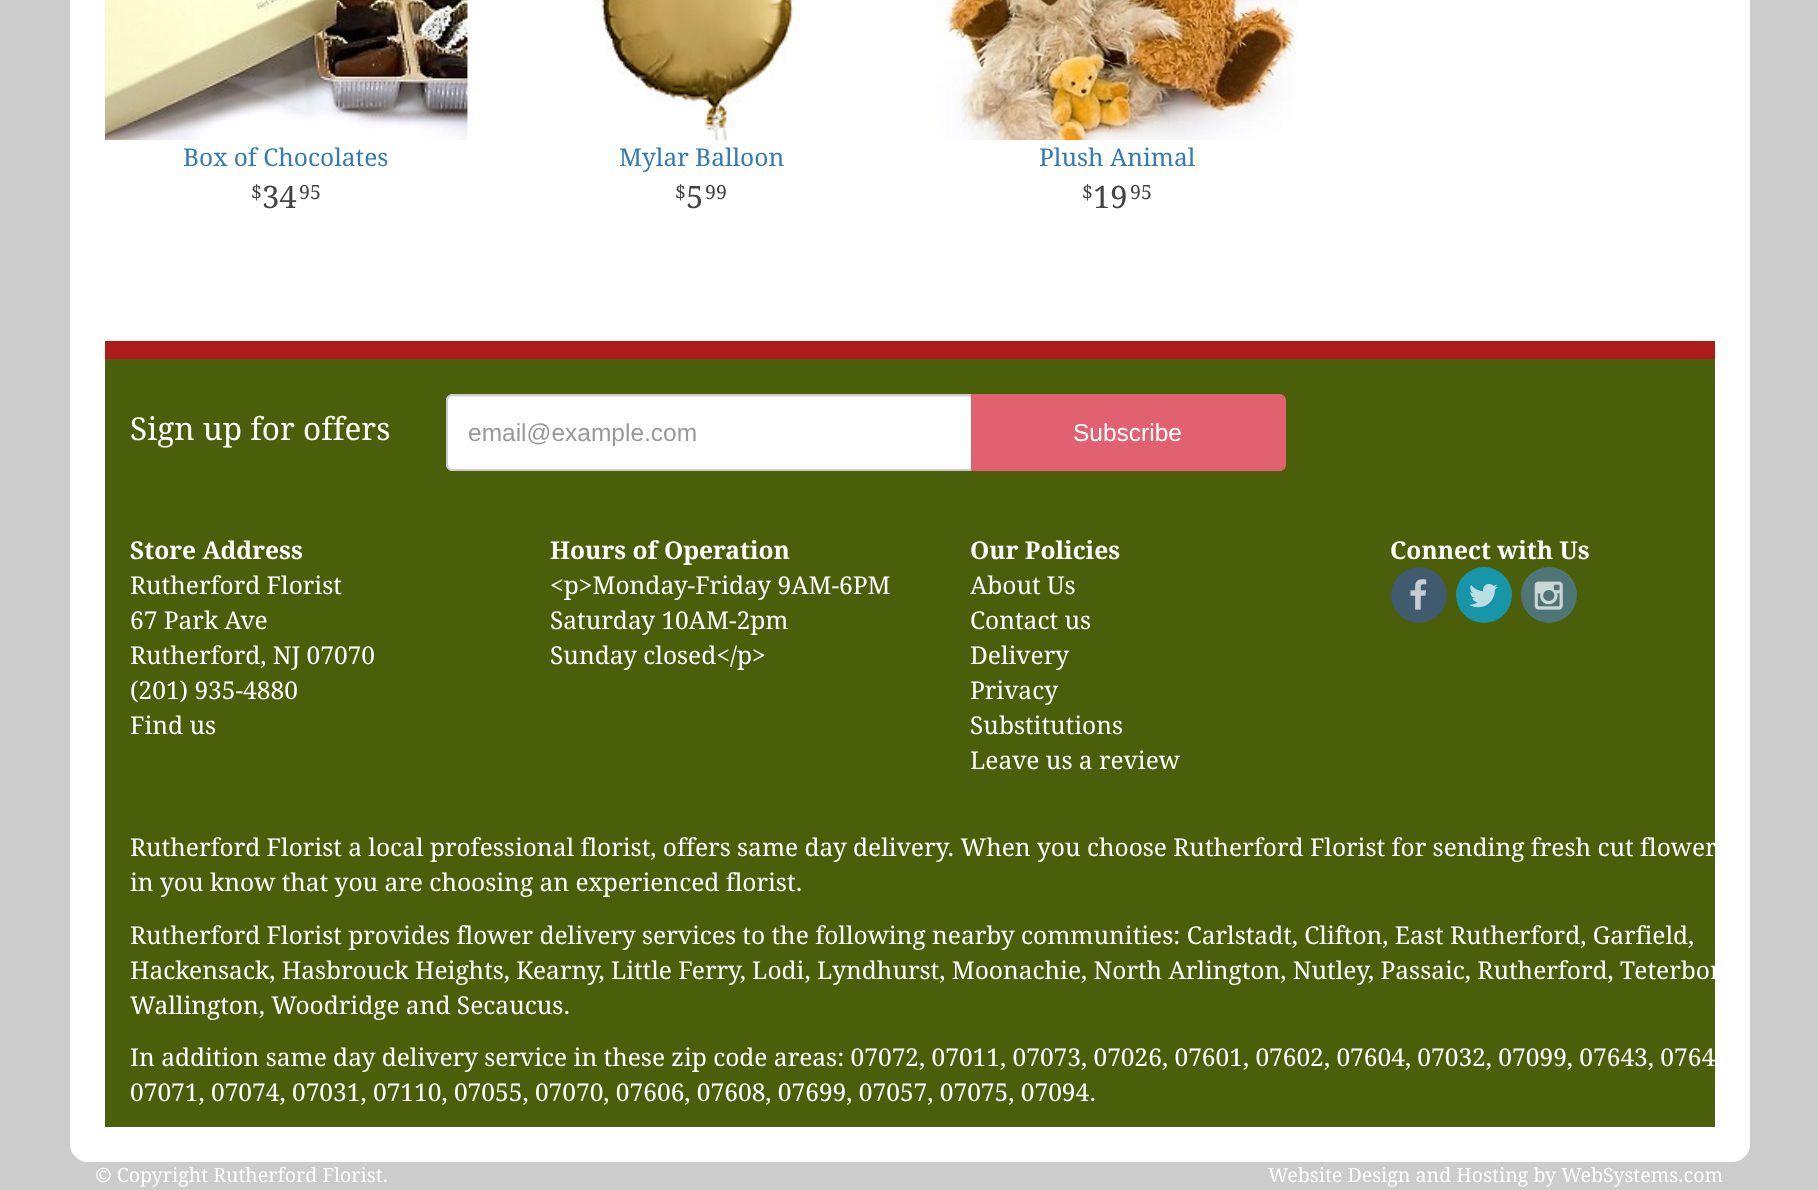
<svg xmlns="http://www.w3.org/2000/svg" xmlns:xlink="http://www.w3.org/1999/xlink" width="1818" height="1190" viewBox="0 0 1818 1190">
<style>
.cls-1{font:24.5px Droid Serif;fill:#337ab7}
.cls-2{font:19.6px Droid Serif;fill:#444444}
.cls-3{font:31px Droid Serif;fill:#444444}
.cls-4{font:31.5px Droid Serif;fill:#ffffff}
.cls-5{font:24.5px Liberation Sans;fill:#999999}
.cls-6{font:24.5px Liberation Sans;fill:#ffffff}
.cls-7{font:bold 24.5px Droid Serif;fill:#ffffff}
.cls-8{font:24.5px Droid Serif;fill:#ffffff}
.cls-9{font:19.6px Droid Serif;fill:#ffffff}
</style>
<rect width="100%" height="100%" fill="#cccccc"/>
<rect fill="none" stroke="#ffffff" stroke-width="35" x="87.5" y="-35.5" width="1645" height="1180" rx="0.5"/>
<rect fill="#ffffff" x="105" y="0" width="1610" height="341"/>
<image xlink:href="image0.png" x="105" y="0" width="363" height="140"/>
<image xlink:href="image1.png" x="467" y="0" width="1" height="127"/>
<image xlink:href="image2.png" x="592" y="0" width="209" height="140"/>
<image xlink:href="image3.png" x="936" y="0" width="362" height="140"/>
<rect fill="#4b5f0a" x="105" y="359" width="1610" height="768"/>
<rect fill="#ad1c19" x="105" y="341" width="1610" height="18"/>
<path fill="#ffffff" d="M453 394H971V471H453C449 471 446 468 446 464V401C446 397 449 394 453 394Z"/>
<path fill="#ececec" d="M453 397H971V396H453C450 396 448 398 448 401V402C448 400 450 397 453 397Z"/>
<path fill="#cccccc" fill-rule="evenodd" d="M453 394H971V471H453C449 471 446 468 446 464V401C446 397 449 394 453 394ZM453 396H971V469H453C450 469 448 467 448 464V401C448 398 450 396 453 396Z"/>
<path fill="#e16170" d="M971 394H1279C1283 394 1286 397 1286 401V464C1286 468 1283 471 1279 471H971Z"/>
<path fill="#e16170" fill-rule="evenodd" d="M971 394H1279C1283 394 1286 397 1286 401V464C1286 468 1283 471 1279 471H971ZM971 396H1279C1282 396 1284 398 1284 401V464C1284 467 1282 469 1279 469H971Z"/>
<circle fill="#405b6d" cx="1419" cy="595" r="28"/>
<image xlink:href="image4.png" x="1410" y="579" width="17" height="31"/>
<circle fill="#1795a9" cx="1484" cy="595" r="28"/>
<image xlink:href="image5.png" x="1469" y="583" width="29" height="25"/>
<circle fill="#4f7576" cx="1549" cy="595" r="28"/>
<image xlink:href="image6.png" x="1534" y="581" width="29" height="29"/>
<text class="cls-1" x="183" y="166">Box of Chocolates</text>
<text class="cls-2" x="251" y="199">$</text>
<text class="cls-3" x="262" y="208">34</text>
<text class="cls-2" x="299" y="199">95</text>
<text class="cls-1" x="619" y="166">Mylar Balloon</text>
<text class="cls-2" x="675" y="199">$</text>
<text class="cls-3" x="686" y="208">5</text>
<text class="cls-2" x="705" y="199">99</text>
<text class="cls-1" x="1039" y="166">Plush Animal</text>
<text class="cls-2" x="1082" y="199">$</text>
<text class="cls-3" x="1093" y="208">19</text>
<text class="cls-2" x="1130" y="199">95</text>
<text class="cls-4" x="130" y="440">Sign up for offers</text>
<text class="cls-5" x="468" y="441">email@example.com</text>
<text class="cls-6" x="1073" y="441">Subscribe</text>
<text class="cls-7" x="130" y="559">Store Address</text>
<text class="cls-8"><tspan x="130" y="594">Rutherford Florist</tspan><tspan x="130" y="629">67 Park Ave</tspan><tspan x="130" y="664">Rutherford, NJ 07070</tspan><tspan x="130" y="699">(201) 935-4880</tspan><tspan x="130" y="734">Find us</tspan></text>
<text class="cls-7" x="550" y="559">Hours of Operation</text>
<text class="cls-8"><tspan x="550" y="594">&lt;p&gt;Monday-Friday 9AM-6PM</tspan><tspan x="550" y="629">Saturday 10AM-2pm</tspan><tspan x="550" y="664">Sunday closed&lt;/p&gt;</tspan></text>
<text class="cls-7" x="970" y="559">Our Policies</text>
<text class="cls-8"><tspan x="970" y="594">About Us</tspan><tspan x="970" y="629">Contact us</tspan><tspan x="970" y="664">Delivery</tspan><tspan x="970" y="699">Privacy</tspan><tspan x="970" y="734">Substitutions</tspan><tspan x="970" y="769">Leave us a review</tspan></text>
<text class="cls-7" x="1390" y="559">Connect with Us</text>
<text class="cls-8"><tspan x="130" y="856">Rutherford Florist a local professional florist, offers same day delivery. When you choose Rutherford Florist for sending fresh cut flower</tspan><tspan x="130" y="891">in you know that you are choosing an experienced florist.</tspan></text>
<text class="cls-8"><tspan x="130" y="944">Rutherford Florist provides flower delivery services to the following nearby communities: Carlstadt, Clifton, East Rutherford, Garfield,</tspan><tspan x="130" y="979">Hackensack, Hasbrouck Heights, Kearny, Little Ferry, Lodi, Lyndhurst, Moonachie, North Arlington, Nutley, Passaic, Rutherford, Teterbor</tspan><tspan x="130" y="1014">Wallington, Woodridge and Secaucus.</tspan></text>
<text class="cls-8"><tspan x="130" y="1066">In addition same day delivery service in these zip code areas: 07072, 07011, 07073, 07026, 07601, 07602, 07604, 07032, 07099, 07643, 0764</tspan><tspan x="130" y="1101">07071, 07074, 07031, 07110, 07055, 07070, 07606, 07608, 07699, 07057, 07075, 07094.</tspan></text>
<text class="cls-9" x="95" y="1182">© Copyright Rutherford Florist.</text>
<text class="cls-9" x="1268" y="1182">Website Design and Hosting by WebSystems.com</text>
</svg>
